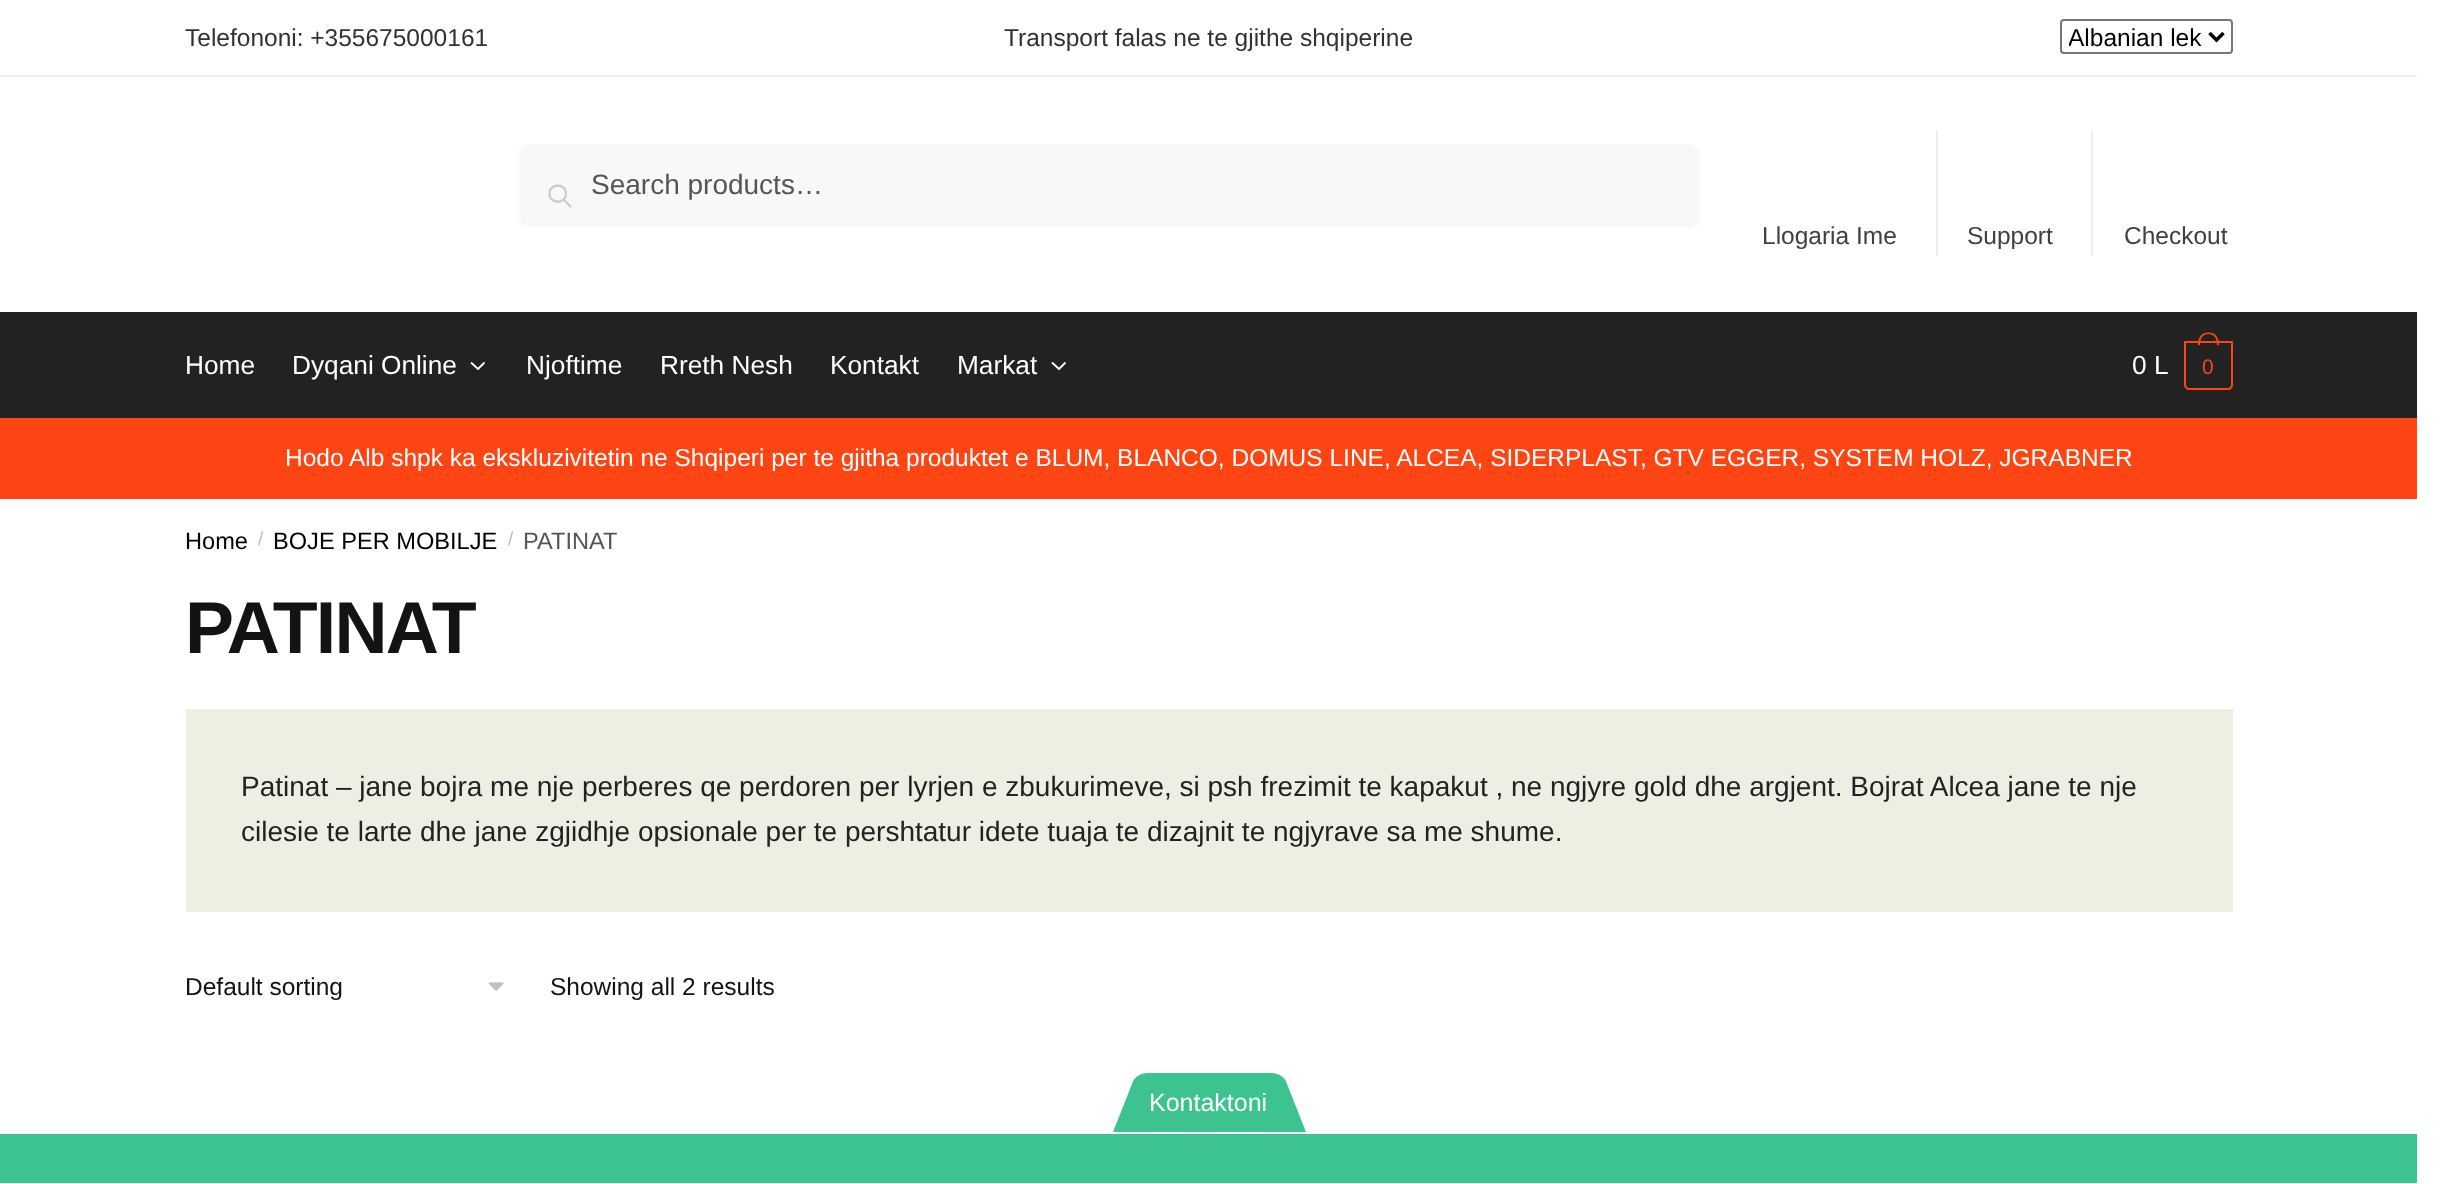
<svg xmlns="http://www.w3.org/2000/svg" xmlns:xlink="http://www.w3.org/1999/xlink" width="2442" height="1184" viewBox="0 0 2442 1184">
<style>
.cls-1{font:24.5px Liberation Sans;fill:#323232}
.cls-2{font:24.5px Liberation Sans;fill:#000000}
.cls-3{font:28px Liberation Sans;fill:#555555}
.cls-4{font:24.5px Liberation Sans;fill:#404040}
.cls-5{font:26.25px Liberation Sans;fill:#ffffff}
.cls-6{font:21px Liberation Sans;letter-spacing:-1px;fill:#fc4513}
.cls-7{font:24.5px Liberation Sans;fill:#ffffff}
.cls-8{font:23.6px Liberation Sans;fill:#000000}
.cls-9{font:19px Liberation Sans;fill:#bbbbbb}
.cls-10{font:23.6px Liberation Sans;fill:#555555}
.cls-11{font:bold 73.5px Liberation Sans;letter-spacing:-1.75px;fill:#131315}
.cls-12{font:28px Liberation Sans;fill:#222222}
.cls-13{font:24.5px Liberation Sans;fill:#131315}
.cls-14{font:25px Liberation Sans;fill:#ffffff}
</style>
<defs>
<clipPath id="clip1"><rect x="2069" y="21" width="134" height="32"/></clipPath>
</defs>
<rect width="100%" height="100%" fill="#ffffff"/>
<rect fill="#eeeeee" x="0" y="75" width="2417" height="2"/>
<rect fill="none" stroke="#767676" stroke-width="2" x="2061" y="20" width="171" height="33" rx="3"/>
<path fill="none" stroke="#000000" stroke-width="3.5" d="M2209.5 33L2216.5 40L2223.5 33"/>
<rect fill="#000000" fill-opacity="0.05" filter="blur(2px)" x="520" y="147" width="1178" height="79" rx="7"/>
<rect fill="#f8f8f8" x="520" y="145" width="1178" height="79" rx="7"/>
<path fill="none" stroke="#cccccc" stroke-width="2.3" stroke-linecap="round" stroke-linejoin="round" d="M570.5 206.5L563.5 199.5M566 193.5C566 204.5 549.5 204.5 549.5 193.5C549.5 183 566 183 566 193.5Z"/>
<rect fill="#eeeeee" x="1936" y="130" width="2" height="126"/>
<rect fill="#eeeeee" x="2091" y="130" width="2" height="126"/>
<rect fill="#222222" x="0" y="312" width="2417" height="106"/>
<path fill="none" stroke="#ffffff" stroke-width="1.8" stroke-linecap="round" stroke-linejoin="round" d="M484 363L478 369L471.5 363"/>
<path fill="none" stroke="#ffffff" stroke-width="1.8" stroke-linecap="round" stroke-linejoin="round" d="M1065 363L1059 369L1052.5 363"/>
<path fill="none" stroke="#fc4513" stroke-width="2" d="M2185 342H2232V385C2232 387 2230 389 2228 389H2189C2187 389 2185 387 2185 385Z"/>
<path fill="#fc4513" fill-rule="evenodd" d="M2208.5 332.5C2216 332.5 2219 338 2219 345H2198C2198 338 2201 332.5 2208.5 332.5ZM2208.5 334C2215 334 2217 339 2217 345H2200C2200 339 2202 334 2208.5 334Z"/>
<rect fill="#fc4513" x="0" y="418" width="2417" height="81"/>
<rect fill="#efeee3" x="186" y="709" width="2047" height="203"/>
<image xlink:href="image0.png" x="488" y="982" width="16" height="9"/>
<path fill="#3cc391" d="M1306 1132L1287 1084C1285 1077 1279 1073 1271 1073H1148C1140 1073 1134 1077 1132 1084L1113 1132Z"/>
<rect fill="#3cc391" x="0" y="1134" width="2417" height="49"/>
<text class="cls-1" x="185" y="46">Telefononi: +355675000161</text>
<text class="cls-1" x="1004" y="46">Transport falas ne te gjithe shqiperine</text>
<g clip-path="url(#clip1)">
<text class="cls-2" x="2068" y="46">Albanian lek</text>
</g>
<text class="cls-3" x="591" y="194">Search products…</text>
<text class="cls-4" x="1762" y="244">Llogaria Ime</text>
<text class="cls-4" x="1967" y="244">Support</text>
<text class="cls-4" x="2124" y="244">Checkout</text>
<text class="cls-5" x="185" y="374">Home</text>
<text class="cls-5" x="292" y="374">Dyqani Online</text>
<text class="cls-5" x="526" y="374">Njoftime</text>
<text class="cls-5" x="660" y="374">Rreth Nesh</text>
<text class="cls-5" x="830" y="374">Kontakt</text>
<text class="cls-5" x="957" y="374">Markat</text>
<text class="cls-5" x="2132" y="374">0 L</text>
<text class="cls-6" x="2202" y="374">0</text>
<text class="cls-7" x="285" y="466">Hodo Alb shpk ka ekskluzivitetin ne Shqiperi per te gjitha produktet e BLUM, BLANCO, DOMUS LINE, ALCEA, SIDERPLAST, GTV EGGER, SYSTEM HOLZ, JGRABNER</text>
<text class="cls-8" x="185" y="549">Home</text>
<text class="cls-9" x="258" y="545">/</text>
<text class="cls-8" x="273" y="549">BOJE PER MOBILJE</text>
<text class="cls-9" x="508" y="545">/</text>
<text class="cls-10" x="523" y="549">PATINAT</text>
<text class="cls-11" x="185" y="653">PATINAT</text>
<text class="cls-12"><tspan x="241" y="796">Patinat – jane bojra me nje perberes qe perdoren per lyrjen e zbukurimeve, si psh frezimit te kapakut , ne ngjyre gold dhe argjent. Bojrat Alcea jane te nje</tspan><tspan x="241" y="841">cilesie te larte dhe jane zgjidhje opsionale per te pershtatur idete tuaja te dizajnit te ngjyrave sa me shume.</tspan></text>
<text class="cls-13" x="185" y="995">Default sorting</text>
<text class="cls-13" x="550" y="995">Showing all 2 results</text>
<text class="cls-14" x="1149" y="1111">Kontaktoni</text>
</svg>
